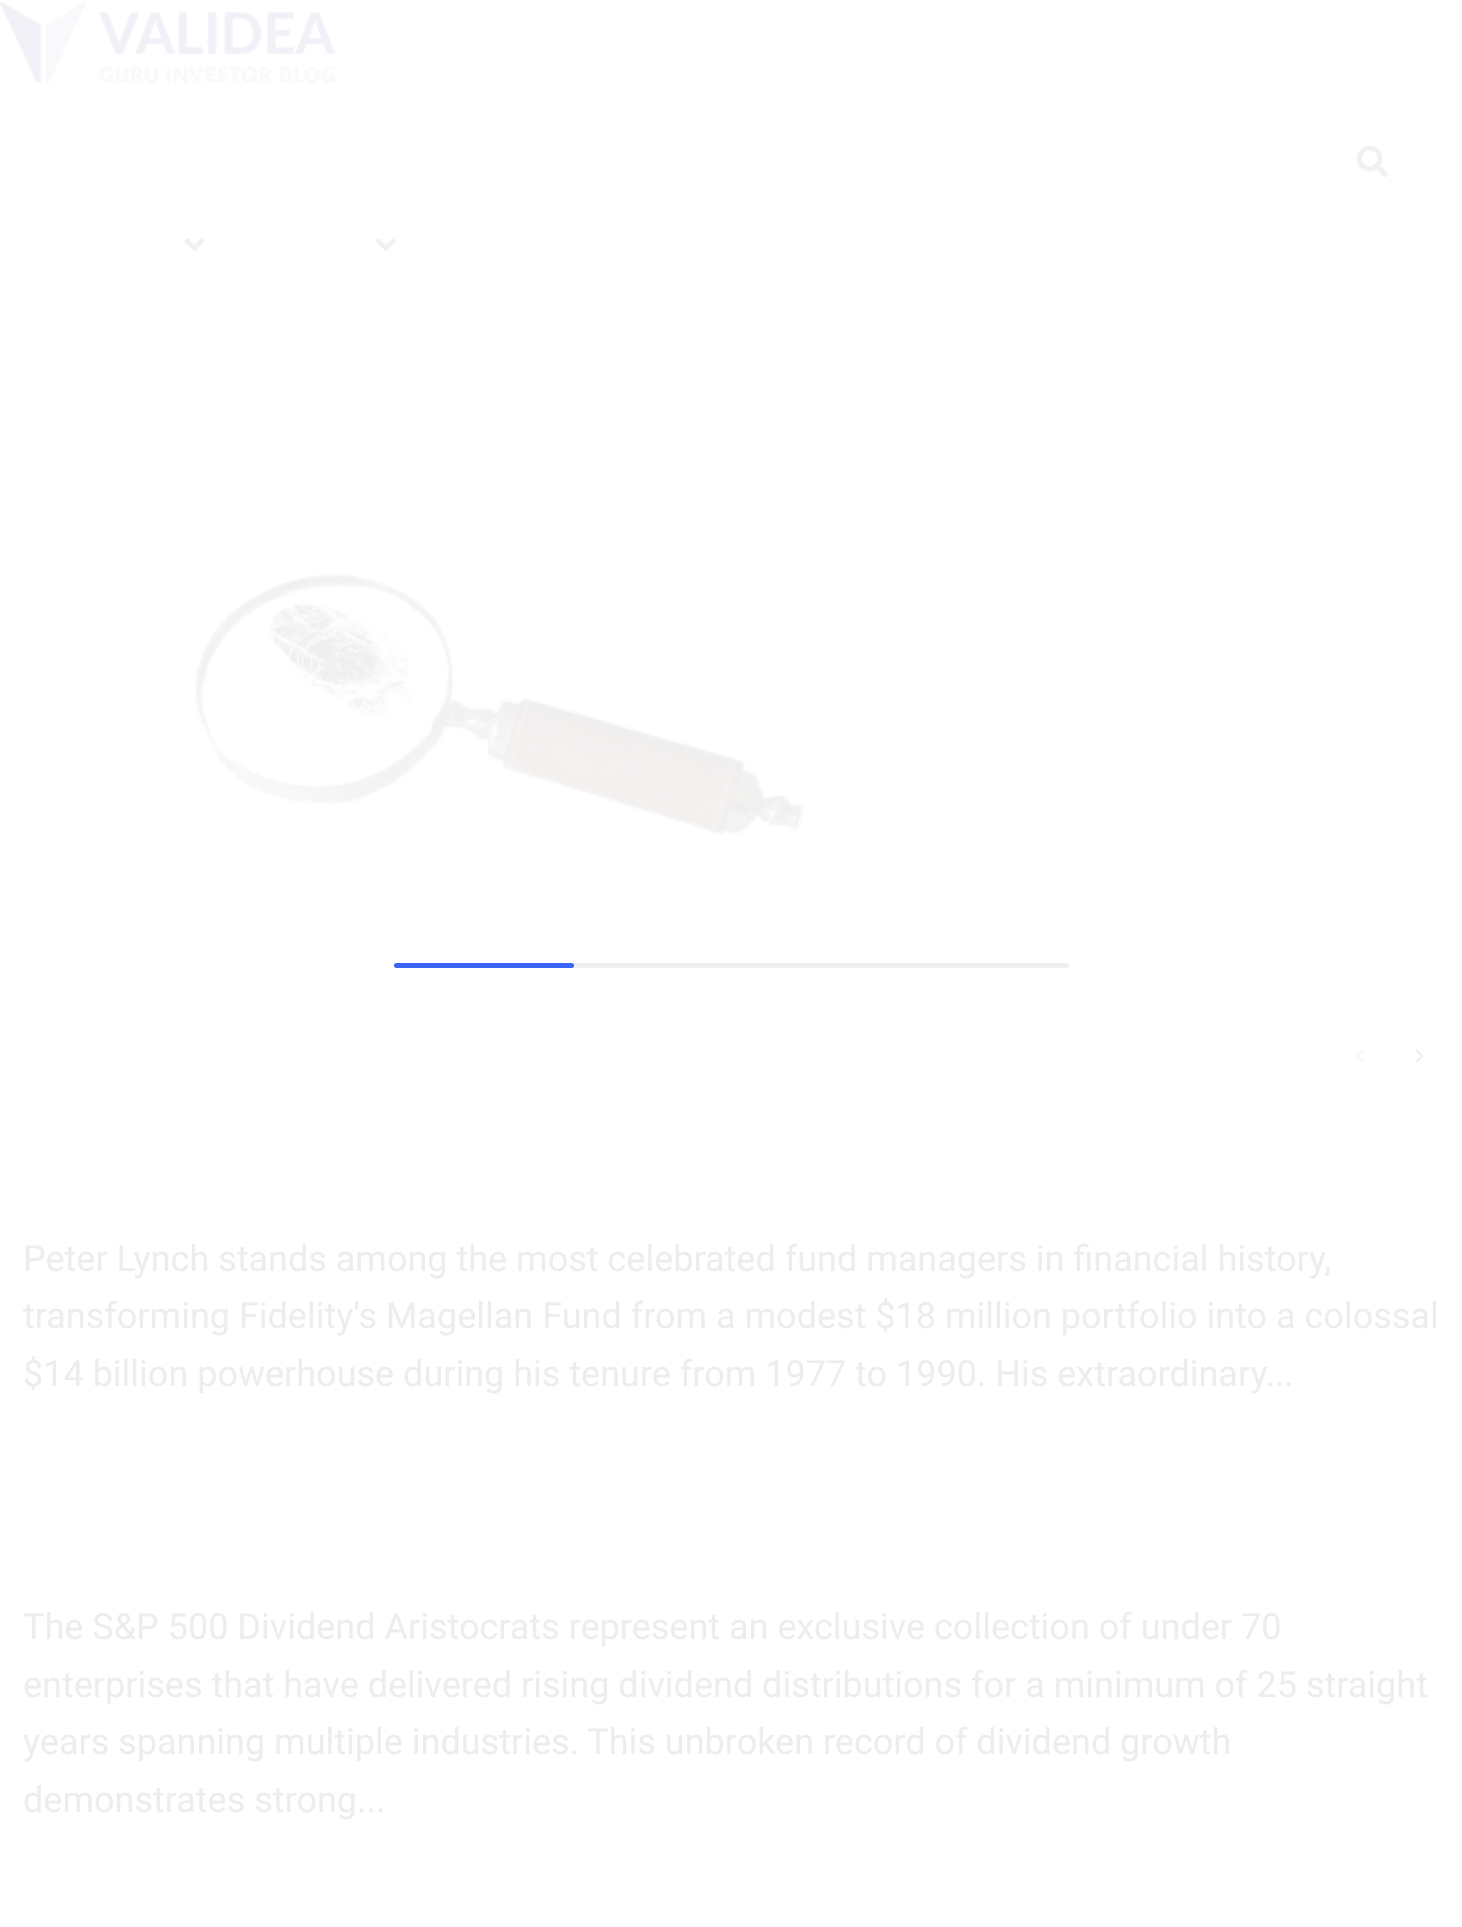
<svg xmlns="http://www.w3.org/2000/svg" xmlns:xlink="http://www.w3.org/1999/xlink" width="1462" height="1927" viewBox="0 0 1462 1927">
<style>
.cls-1{font:36px Roboto;fill:#ededed}
</style>
<rect width="100%" height="100%" fill="#ffffff"/>
<rect fill="#efefef" x="394" y="963" width="675" height="5" rx="2.5"/>
<rect fill="#3a64fb" x="394" y="963" width="180" height="5" rx="2.5"/>
<image xlink:href="image0.png" x="0" y="0" width="336" height="84"/>
<image xlink:href="image1.png" x="1356" y="145" width="33" height="33"/>
<image xlink:href="image2.png" x="184" y="238" width="21" height="13"/>
<image xlink:href="image3.png" x="375" y="238" width="21" height="13"/>
<image xlink:href="image4.png" x="195" y="573" width="609" height="263"/>
<image xlink:href="image5.png" x="1355" y="1049" width="9" height="14"/>
<image xlink:href="image6.png" x="1415" y="1049" width="9" height="14"/>
<text class="cls-1"><tspan x="23" y="1271">Peter Lynch stands among the most celebrated fund managers in financial history,</tspan><tspan x="23" y="1328">transforming Fidelity's Magellan Fund from a modest $18 million portfolio into a colossal</tspan><tspan x="23" y="1386">$14 billion powerhouse during his tenure from 1977 to 1990. His extraordinary...</tspan></text>
<text class="cls-1"><tspan x="23" y="1639">The S&amp;P 500 Dividend Aristocrats represent an exclusive collection of under 70</tspan><tspan x="23" y="1697">enterprises that have delivered rising dividend distributions for a minimum of 25 straight</tspan><tspan x="23" y="1754">years spanning multiple industries. This unbroken record of dividend growth</tspan><tspan x="23" y="1812">demonstrates strong...</tspan></text>
</svg>
